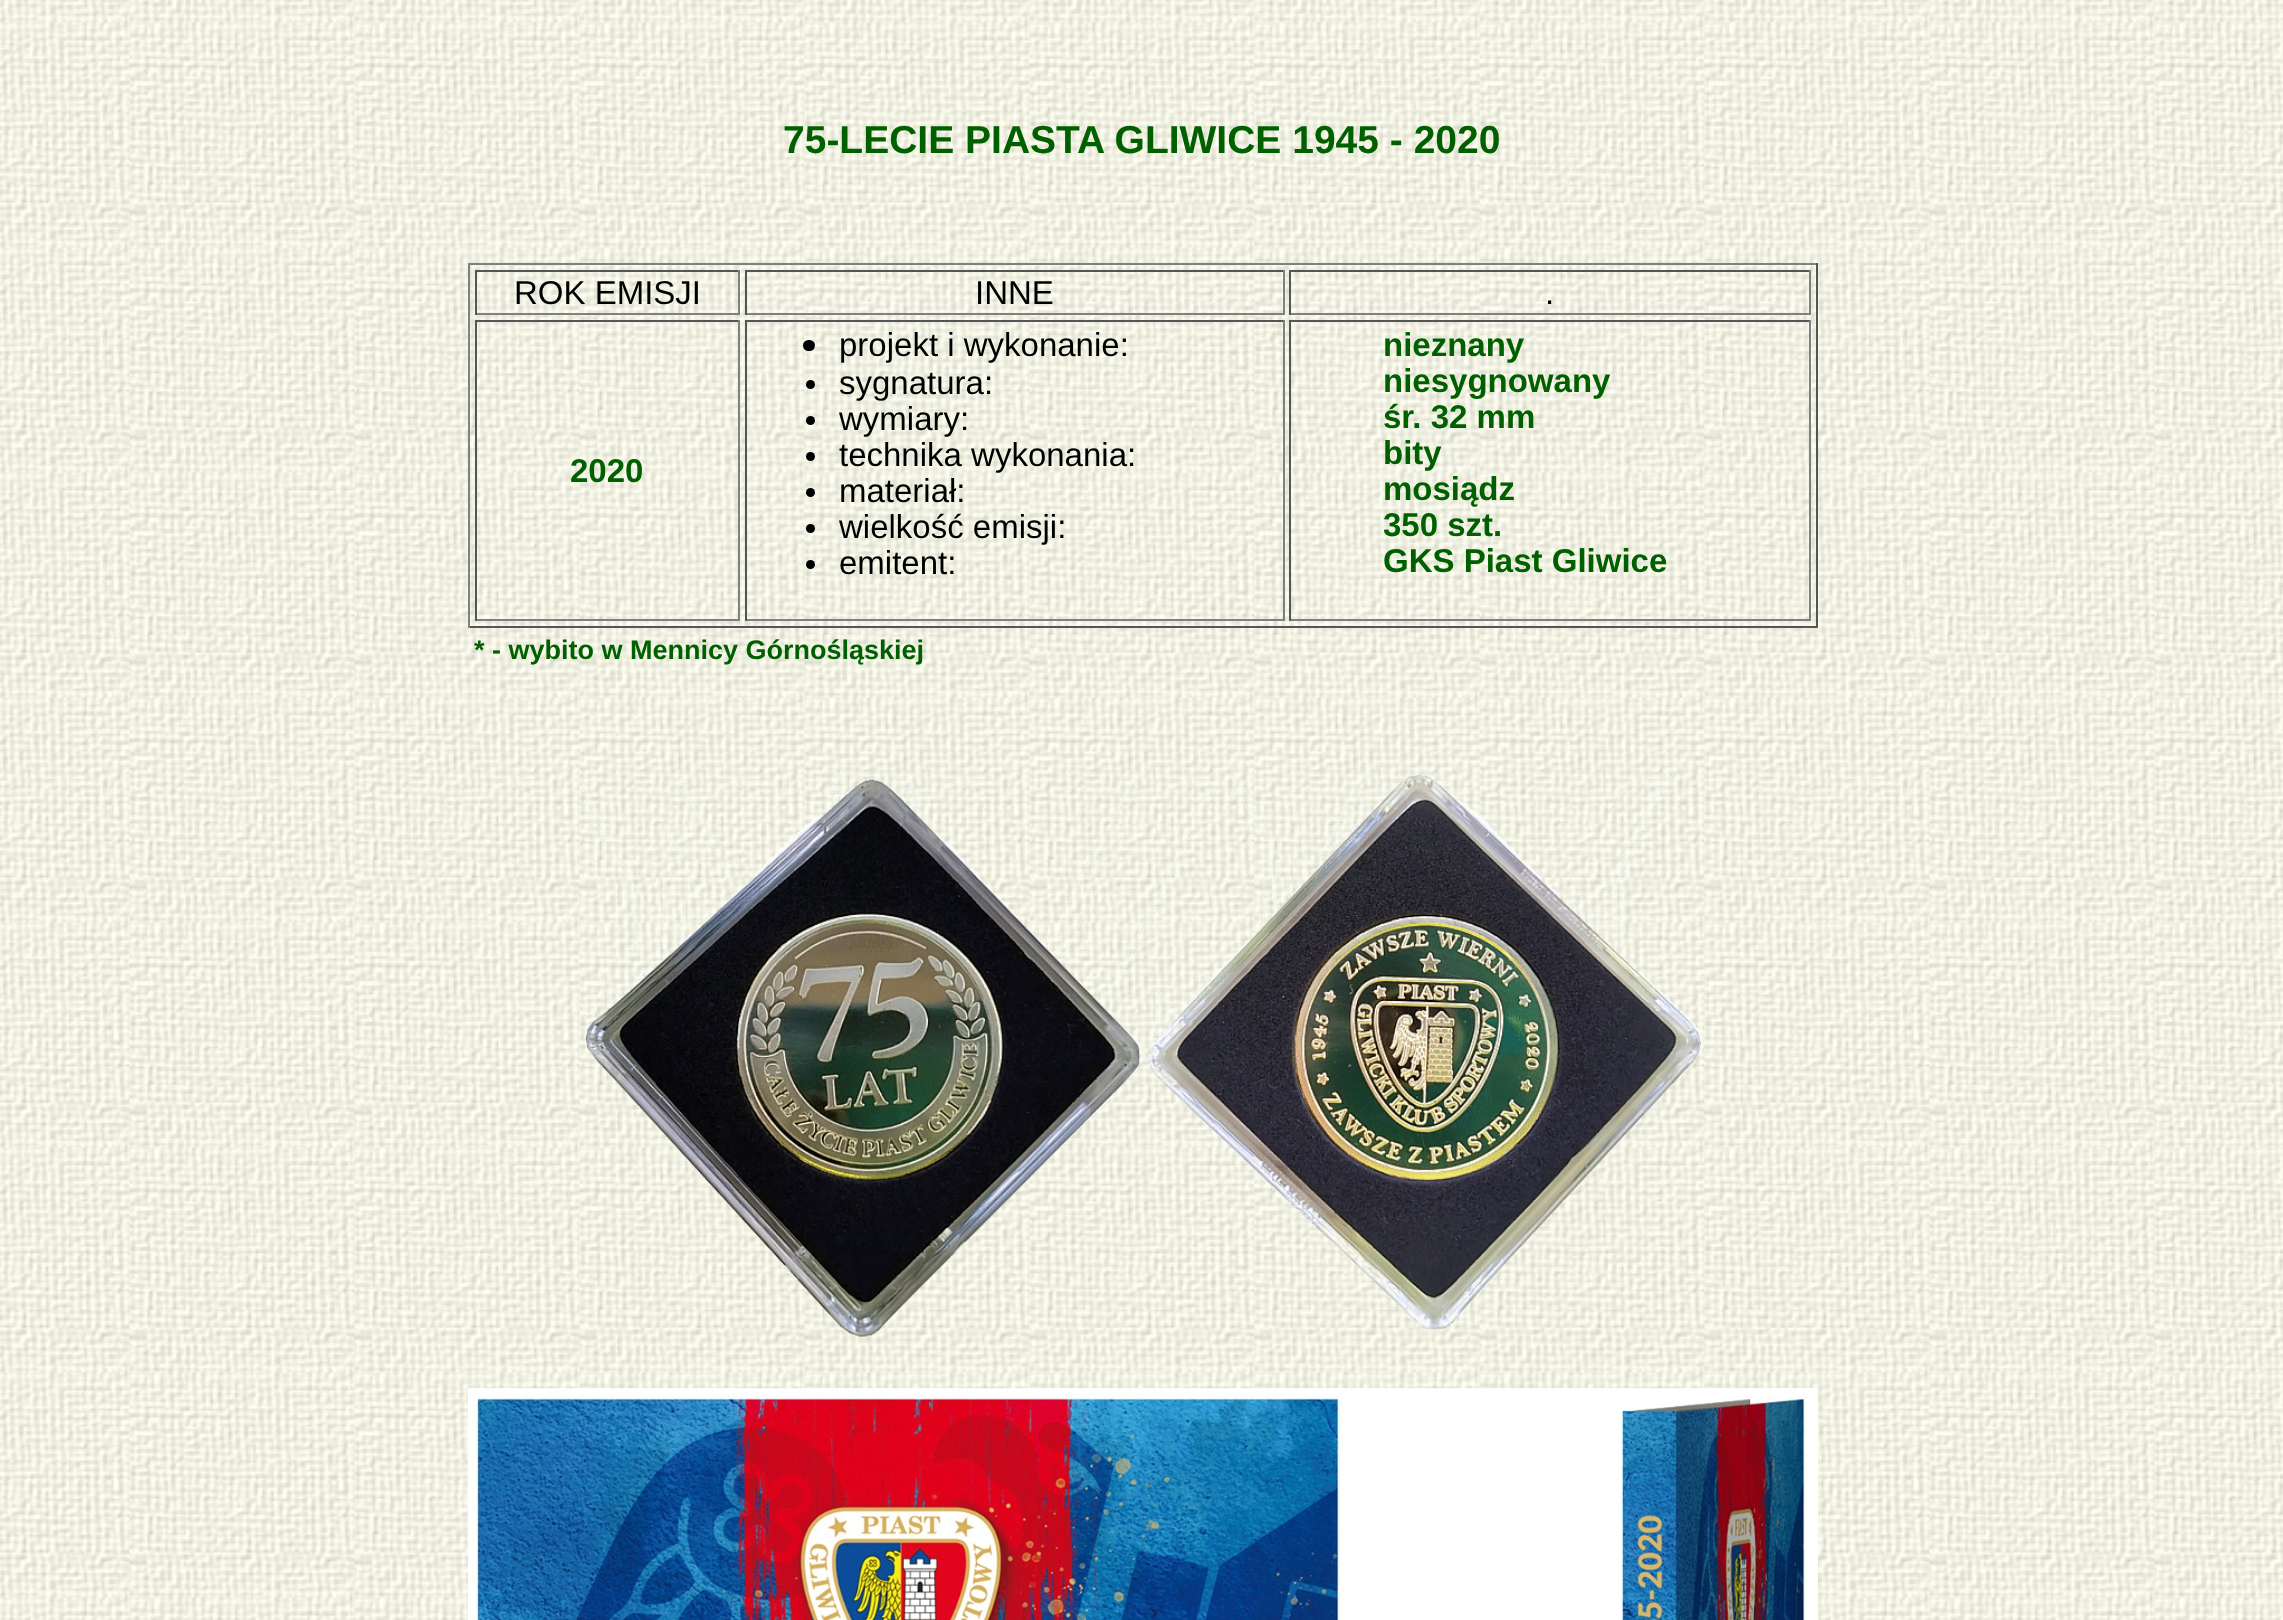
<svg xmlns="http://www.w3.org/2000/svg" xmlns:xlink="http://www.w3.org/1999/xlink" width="2283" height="1620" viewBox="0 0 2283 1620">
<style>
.cls-1{font:bold 39px Liberation Sans;fill:#006000}
.cls-2{font:33px Liberation Sans;fill:#000000}
.cls-3{font:bold 33px Liberation Sans;fill:#006000}
.cls-4{font:bold 27px Liberation Sans;fill:#006000}
</style>
<rect width="100%" height="100%" fill="#ffffff"/>
<image xlink:href="image0.png" x="0" y="0" width="2283" height="1620"/>
<rect fill="#808080" x="468" y="263" width="1350" height="2"/>
<rect fill="#555555" x="1816" y="263" width="2" height="365"/>
<rect fill="#555555" x="468" y="626" width="1350" height="2"/>
<rect fill="#808080" x="468" y="263" width="2" height="365"/>
<rect fill="#555555" x="475" y="270" width="265" height="2"/>
<rect fill="#808080" x="738" y="270" width="2" height="45"/>
<rect fill="#808080" x="475" y="313" width="265" height="2"/>
<rect fill="#555555" x="475" y="270" width="2" height="45"/>
<rect fill="#555555" x="745" y="270" width="540" height="2"/>
<rect fill="#808080" x="1283" y="270" width="2" height="45"/>
<rect fill="#808080" x="745" y="313" width="540" height="2"/>
<rect fill="#555555" x="745" y="270" width="2" height="45"/>
<rect fill="#555555" x="1289" y="270" width="522" height="2"/>
<rect fill="#808080" x="1809" y="270" width="2" height="45"/>
<rect fill="#808080" x="1289" y="313" width="522" height="2"/>
<rect fill="#555555" x="1289" y="270" width="2" height="45"/>
<rect fill="#555555" x="475" y="320" width="265" height="2"/>
<rect fill="#808080" x="738" y="320" width="2" height="301"/>
<rect fill="#808080" x="475" y="619" width="265" height="2"/>
<rect fill="#555555" x="475" y="320" width="2" height="301"/>
<rect fill="#555555" x="745" y="320" width="540" height="2"/>
<rect fill="#808080" x="1283" y="320" width="2" height="301"/>
<rect fill="#808080" x="745" y="619" width="540" height="2"/>
<rect fill="#555555" x="745" y="320" width="2" height="301"/>
<rect fill="#000000" x="803" y="340" width="12" height="11" rx="5.5"/>
<circle fill="#000000" cx="810.5" cy="384.5" r="4.5"/>
<circle fill="#000000" cx="810.5" cy="420.5" r="4.5"/>
<circle fill="#000000" cx="810.5" cy="456.5" r="4.5"/>
<circle fill="#000000" cx="810.5" cy="492.5" r="4.5"/>
<circle fill="#000000" cx="810.5" cy="528.5" r="4.5"/>
<circle fill="#000000" cx="810.5" cy="564.5" r="4.5"/>
<rect fill="#555555" x="1289" y="320" width="522" height="2"/>
<rect fill="#808080" x="1809" y="320" width="2" height="301"/>
<rect fill="#808080" x="1289" y="619" width="522" height="2"/>
<rect fill="#555555" x="1289" y="320" width="2" height="301"/>
<image xlink:href="image1.png" x="581" y="771" width="1123" height="567"/>
<image xlink:href="image2.png" x="468" y="1388" width="1350" height="232"/>
<text class="cls-1" x="783" y="153">75-LECIE PIASTA GLIWICE 1945 - 2020</text>
<text class="cls-2" x="514" y="304">ROK EMISJI</text>
<text class="cls-2" x="975" y="304">INNE</text>
<text class="cls-2" x="1545" y="304">.</text>
<text class="cls-3" x="570" y="482">2020</text>
<text class="cls-2"><tspan x="839" y="356">projekt i wykonanie:</tspan><tspan x="839" y="394">sygnatura:</tspan><tspan x="839" y="430">wymiary:</tspan><tspan x="839" y="466">technika wykonania:</tspan><tspan x="839" y="502">materiał:</tspan><tspan x="839" y="538">wielkość emisji:</tspan><tspan x="839" y="574">emitent:</tspan></text>
<text class="cls-3"><tspan x="1383" y="356">nieznany</tspan><tspan x="1383" y="392">niesygnowany</tspan><tspan x="1383" y="428">śr. 32 mm</tspan><tspan x="1383" y="464">bity</tspan><tspan x="1383" y="500">mosiądz</tspan><tspan x="1383" y="536">350 szt.</tspan><tspan x="1383" y="572">GKS Piast Gliwice</tspan></text>
<text class="cls-4" x="474" y="659">* - wybito w Mennicy Górnośląskiej</text>
</svg>
